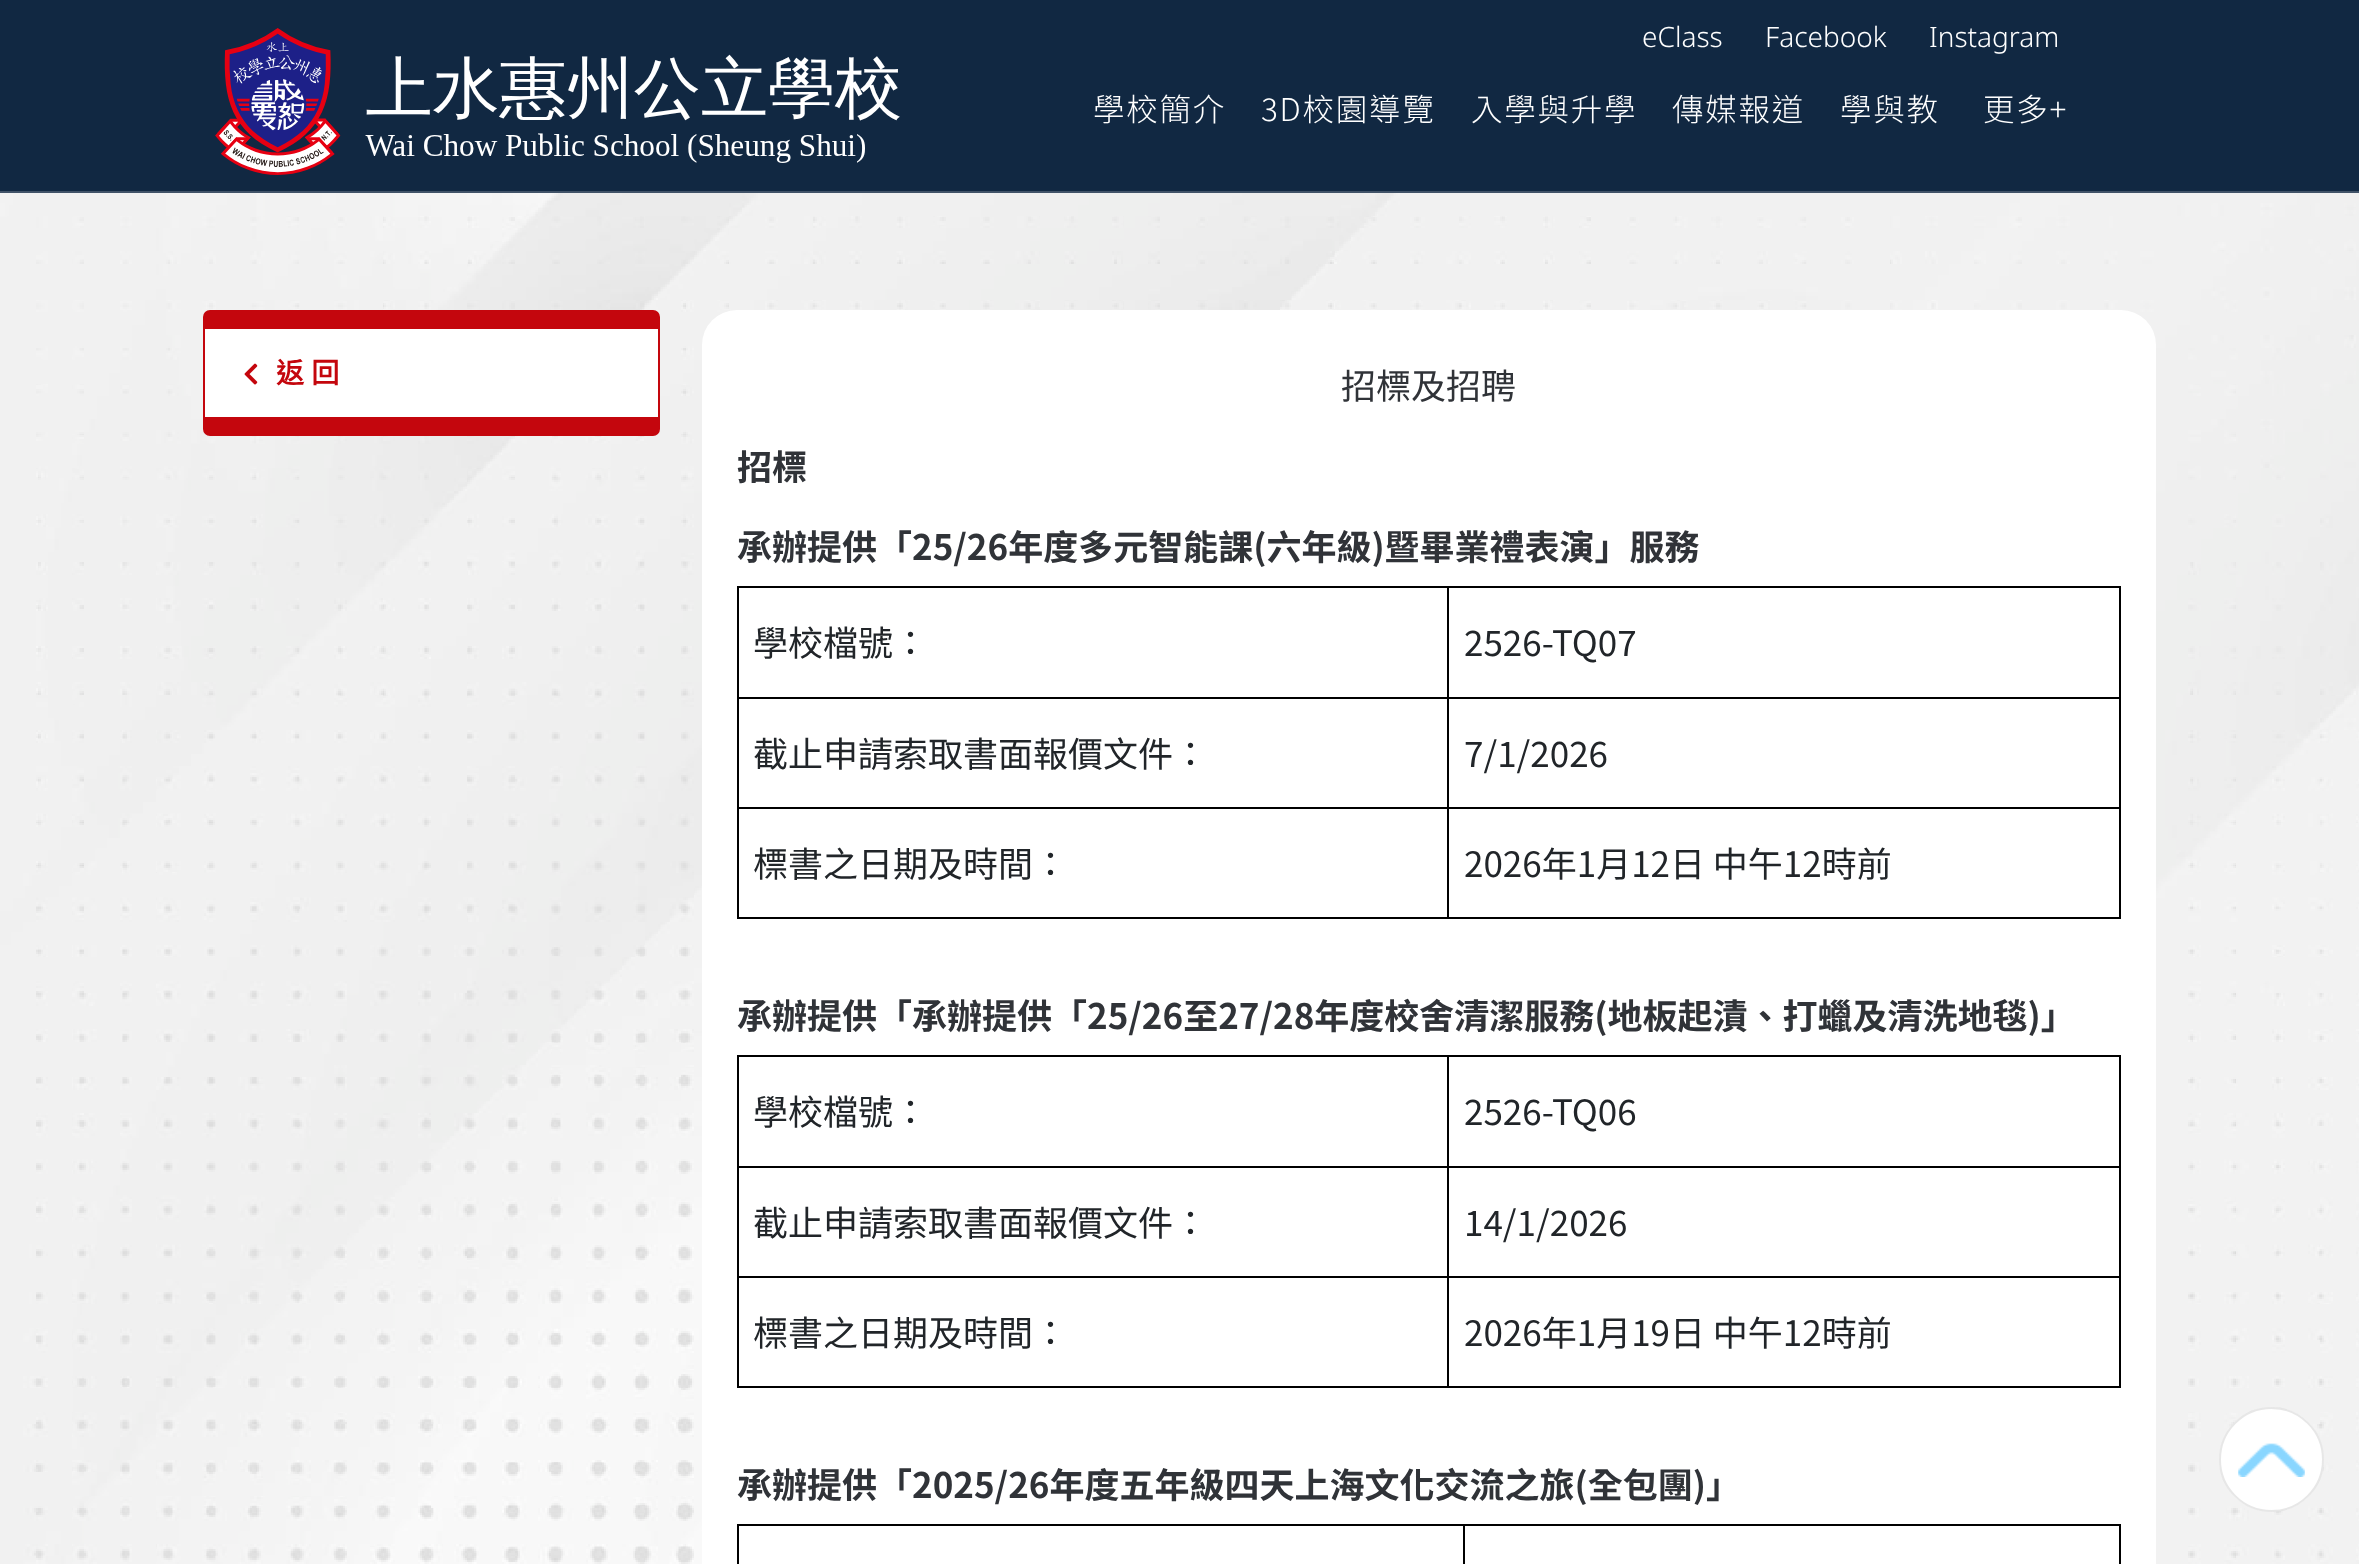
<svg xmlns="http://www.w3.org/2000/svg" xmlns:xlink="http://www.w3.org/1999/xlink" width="2359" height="1564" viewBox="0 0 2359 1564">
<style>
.cls-1{font:300 28px Noto Sans;fill:#ffffff}
.cls-2{font:300 31.5px Noto Sans TC;letter-spacing:1.75px;fill:#ffffff}
.cls-3{font:bold 28px Noto Sans CJK HK;fill:#c4060d}
.cls-4{font:35px Noto Sans TC;fill:#303338}
.cls-5{font:bold 35px Noto Sans TC;fill:#303338}
.cls-6{font:35px Noto Sans TC;fill:#212529}
</style>
<rect width="100%" height="100%" fill="#ffffff"/>
<rect fill="#112842" x="0" y="0" width="2359" height="191"/>
<rect fill="#415368" x="0" y="191" width="2359" height="2"/>
<image xlink:href="image0.png" x="215" y="28" width="685" height="147"/>
<image xlink:href="image1.png" x="0" y="193" width="2359" height="1371"/>
<rect fill="#c4060d" stroke="#c4060d" stroke-width="2" x="204" y="311" width="455" height="124" rx="6"/>
<rect fill="#ffffff" x="205" y="329" width="453" height="88"/>
<image xlink:href="image2.png" x="244" y="363" width="14" height="22"/>
<rect fill="#ffffff" x="702" y="310" width="1454" height="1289" rx="35"/>
<rect fill="#000000" x="737" y="586" width="1384" height="2"/>
<rect fill="#000000" x="2119" y="586" width="2" height="333"/>
<rect fill="#000000" x="737" y="917" width="1384" height="2"/>
<rect fill="#000000" x="737" y="586" width="2" height="333"/>
<rect fill="#000000" x="737" y="697" width="1384" height="2"/>
<rect fill="#000000" x="737" y="807" width="1384" height="2"/>
<rect fill="#000000" x="1447" y="586" width="2" height="333"/>
<rect fill="#000000" x="737" y="1055" width="1384" height="2"/>
<rect fill="#000000" x="2119" y="1055" width="2" height="333"/>
<rect fill="#000000" x="737" y="1386" width="1384" height="2"/>
<rect fill="#000000" x="737" y="1055" width="2" height="333"/>
<rect fill="#000000" x="737" y="1166" width="1384" height="2"/>
<rect fill="#000000" x="737" y="1276" width="1384" height="2"/>
<rect fill="#000000" x="1447" y="1055" width="2" height="333"/>
<rect fill="#000000" x="737" y="1524" width="1384" height="2"/>
<rect fill="#000000" x="2119" y="1524" width="2" height="40"/>
<rect fill="#000000" x="737" y="1524" width="2" height="40"/>
<rect fill="#000000" x="1463" y="1524" width="2" height="40"/>
<circle fill="#ffffff" cx="2271.5" cy="1459.5" r="52.5"/>
<circle fill="none" stroke="#b0b0b0" stroke-opacity="0.3" stroke-width="2" cx="2271.5" cy="1459.5" r="51.5"/>
<image xlink:href="image3.png" x="2238" y="1443" width="67" height="34"/>
<text class="cls-1" x="1642" y="47">eClass</text>
<text class="cls-1" x="1765" y="47">Facebook</text>
<text class="cls-1" x="1929" y="47">Instagram</text>
<text class="cls-2" x="1093" y="121">學校簡介</text>
<text class="cls-2" x="1261" y="121">3D校園導覽</text>
<text class="cls-2" x="1471" y="121">入學與升學</text>
<text class="cls-2" x="1672" y="121">傳媒報道</text>
<text class="cls-2" x="1840" y="121">學與教</text>
<text class="cls-2" x="1983" y="121">更多+</text>
<text class="cls-3" x="276" y="383" word-spacing="1">返 回</text>
<text class="cls-4" x="1341" y="399">招標及招聘</text>
<text class="cls-5" x="737" y="480">招標</text>
<text class="cls-5" x="737" y="560">承辦提供「25/26年度多元智能課(六年級)暨畢業禮表演」服務</text>
<text class="cls-6" x="753" y="656">學校檔號：</text>
<text class="cls-6" x="1464" y="656">2526-TQ07</text>
<text class="cls-6" x="753" y="767">截止申請索取書面報價文件：</text>
<text class="cls-6" x="1464" y="767">7/1/2026</text>
<text class="cls-6" x="753" y="877">標書之日期及時間：</text>
<text class="cls-6" x="1464" y="877">2026年1月12日 中午12時前</text>
<text class="cls-5" x="737" y="1029">承辦提供「承辦提供「25/26至27/28年度校舍清潔服務(地板起漬、打蠟及清洗地毯)」</text>
<text class="cls-6" x="753" y="1125">學校檔號：</text>
<text class="cls-6" x="1464" y="1125">2526-TQ06</text>
<text class="cls-6" x="753" y="1236">截止申請索取書面報價文件：</text>
<text class="cls-6" x="1464" y="1236">14/1/2026</text>
<text class="cls-6" x="753" y="1346">標書之日期及時間：</text>
<text class="cls-6" x="1464" y="1346">2026年1月19日 中午12時前</text>
<text class="cls-5" x="737" y="1498">承辦提供「2025/26年度五年級四天上海文化交流之旅(全包團)」</text>
</svg>
